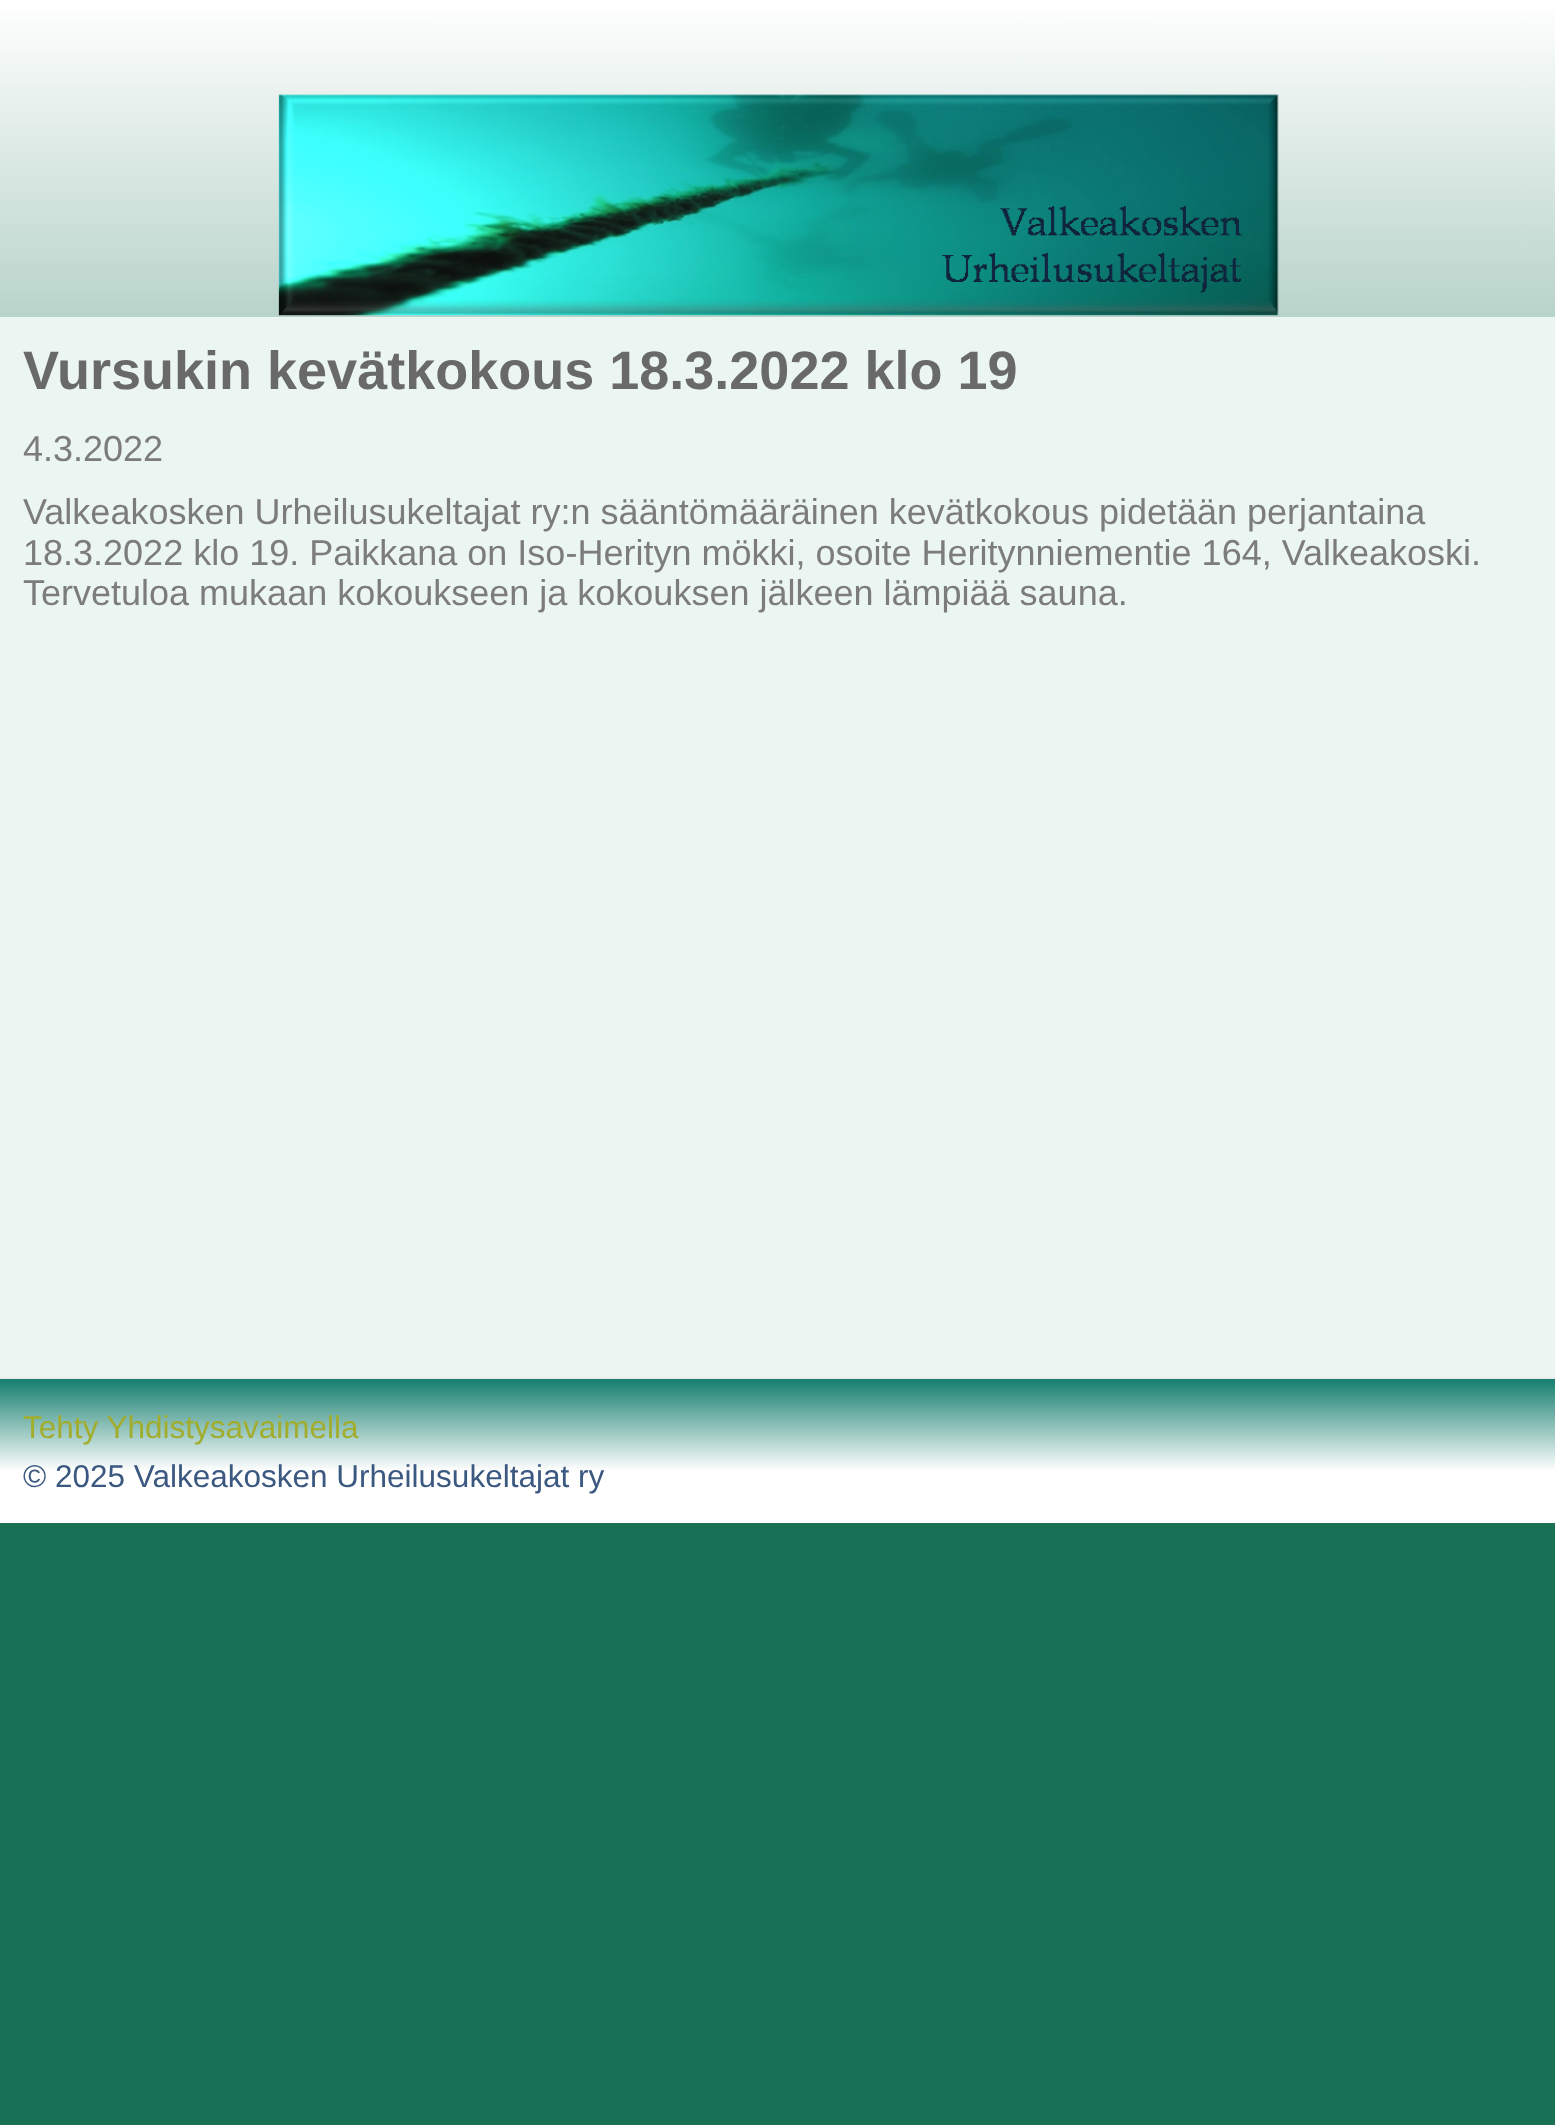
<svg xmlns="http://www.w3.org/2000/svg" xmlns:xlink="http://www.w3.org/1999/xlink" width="1555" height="2125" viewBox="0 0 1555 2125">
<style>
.cls-1{font:bold 54px Liberation Sans;fill:#696969}
.cls-2{font:36px Liberation Sans;fill:#7c7c7c}
.cls-3{font:31.5px Liberation Sans;fill:#a2ad2d}
.cls-4{font:31.5px Liberation Sans;fill:#3b5880}
</style>
<defs>
<linearGradient id="g1" gradientUnits="userSpaceOnUse" x1="778" y1="0" x2="779" y2="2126"><stop offset="0" stop-color="#ffffff"/><stop offset="0.48" stop-color="#197155"/><stop offset="1" stop-color="#197155"/></linearGradient>
<linearGradient id="g2" gradientUnits="userSpaceOnUse" x1="779" y1="1379" x2="779" y2="1523"><stop offset="0" stop-color="#157e6e"/><stop offset="0.64" stop-color="#ffffff"/><stop offset="1" stop-color="#ffffff"/></linearGradient>
</defs>
<rect width="100%" height="100%" fill="#ffffff"/>
<rect fill="url(#g1)" x="0" y="11" width="1555" height="2114"/>
<image xlink:href="image0.png" x="278" y="94" width="1001" height="222"/>
<rect fill="#ebf5f2" x="0" y="317" width="1555" height="1060"/>
<rect fill="url(#g2)" x="0" y="1379" width="1555" height="144"/>
<rect fill="#ebebeb" x="0" y="1377" width="1555" height="2"/>
<text class="cls-1" x="23" y="389">Vursukin kevätkokous 18.3.2022 klo 19</text>
<text class="cls-2"><tspan x="23" y="461">4.3.2022</tspan><tspan x="23" y="524">Valkeakosken Urheilusukeltajat ry:n sääntömääräinen kevätkokous pidetään perjantaina</tspan><tspan x="23" y="565">18.3.2022 klo 19. Paikkana on Iso-Herityn mökki, osoite Heritynniementie 164, Valkeakoski.</tspan><tspan x="23" y="605">Tervetuloa mukaan kokoukseen ja kokouksen jälkeen lämpiää sauna.</tspan></text>
<text class="cls-3" x="23" y="1438">Tehty Yhdistysavaimella</text>
<text class="cls-4" x="23" y="1487">© 2025 Valkeakosken Urheilusukeltajat ry</text>
</svg>
